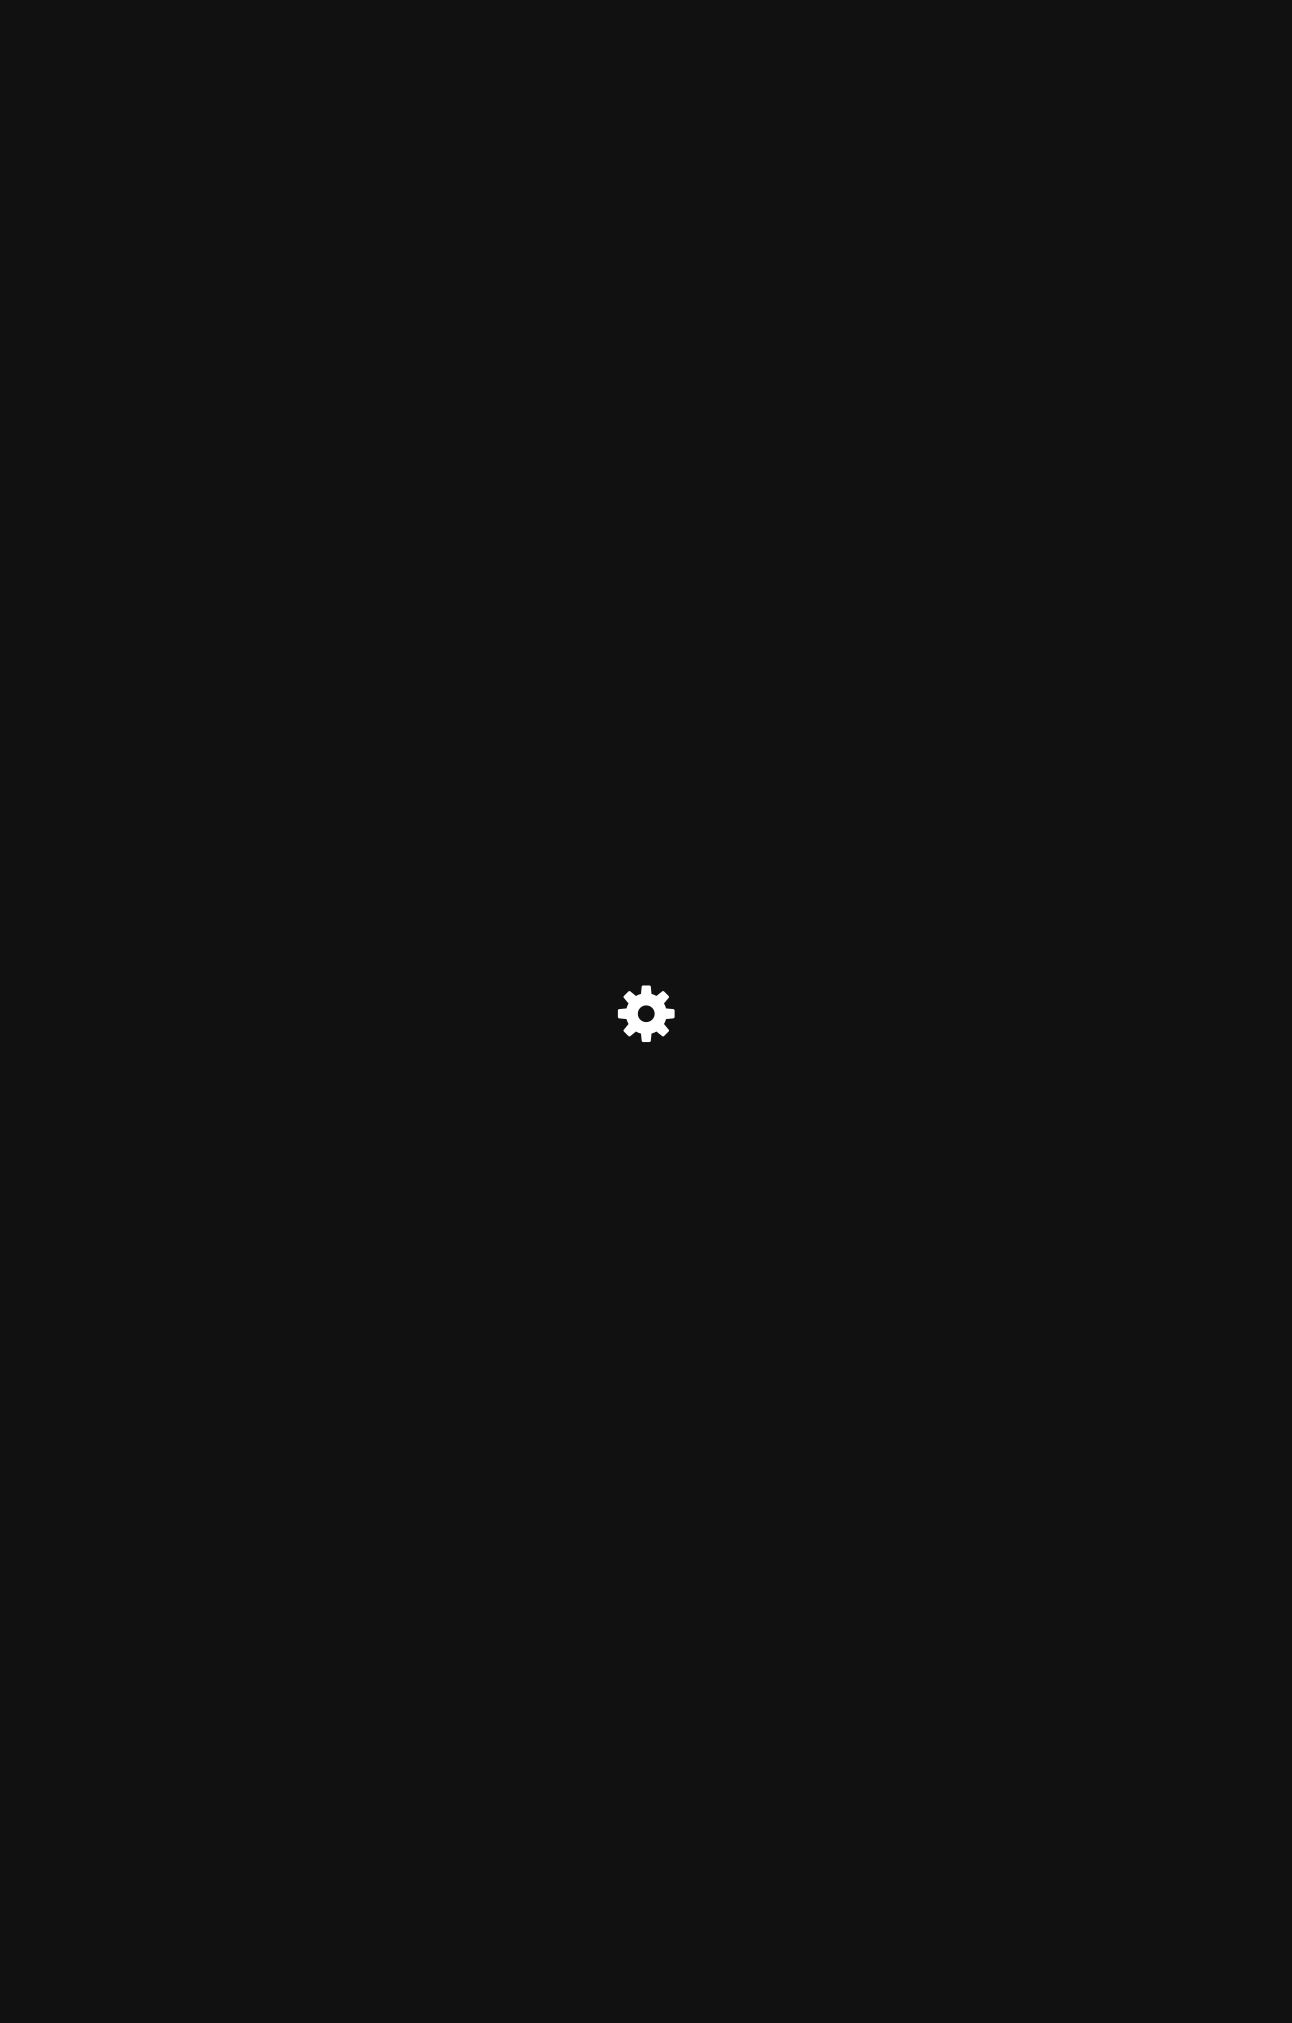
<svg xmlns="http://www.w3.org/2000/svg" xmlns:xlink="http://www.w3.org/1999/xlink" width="1292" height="2023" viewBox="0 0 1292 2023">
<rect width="100%" height="100%" fill="#111111"/>
<image xlink:href="image0.png" x="617" y="985" width="58" height="58"/>
</svg>
